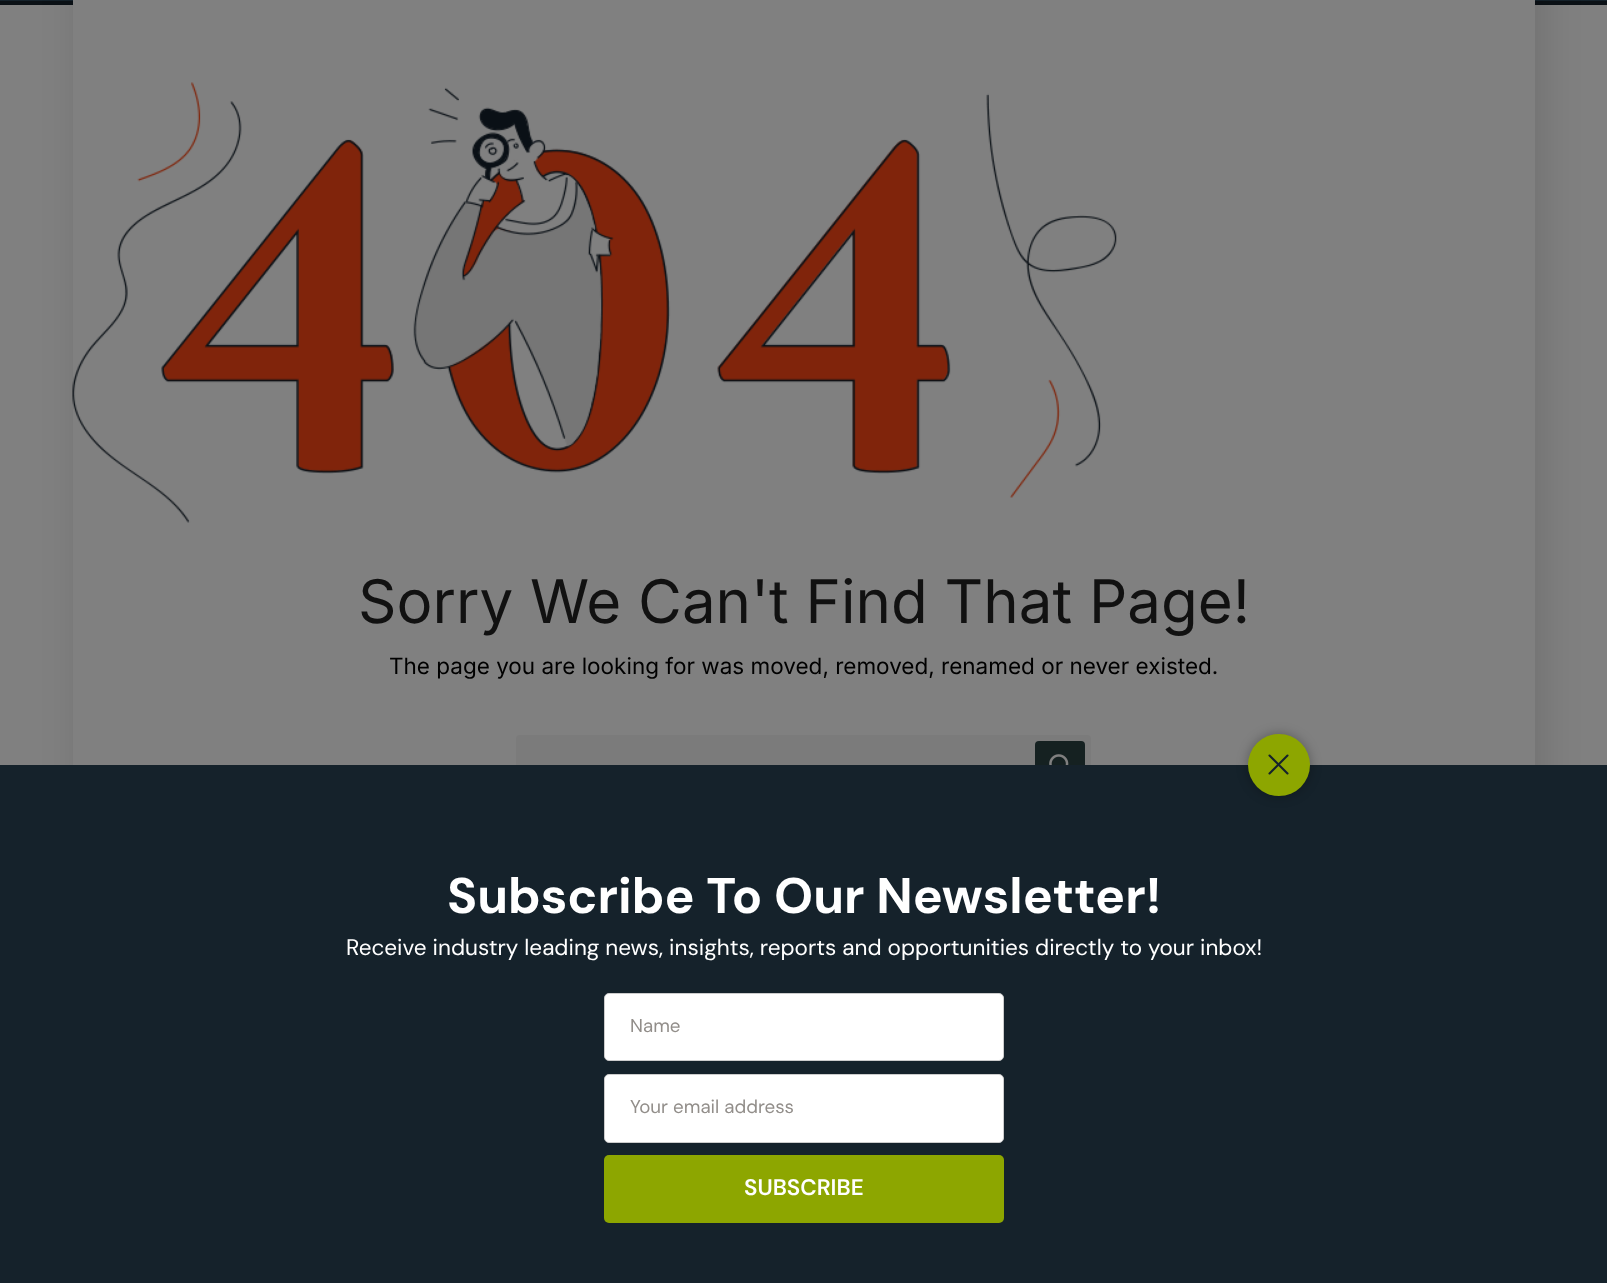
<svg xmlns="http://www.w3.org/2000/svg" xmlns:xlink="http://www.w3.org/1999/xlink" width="1607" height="1283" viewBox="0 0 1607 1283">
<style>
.cls-1{font:60px Inter;fill:#111111}
.cls-2{font:22.5px Inter;fill:#000000}
.cls-3{font:bold 50px DM Sans;fill:#ffffff}
.cls-4{font:22.5px DM Sans;fill:#ffffff}
.cls-5{font:18.75px DM Sans;fill:#928e8a}
.cls-6{font:600 22.5px DM Sans;fill:#ffffff}
</style>
<rect width="100%" height="100%" fill="#808080"/>
<rect fill="#15222b" x="0" y="0" width="1607" height="1"/>
<rect fill="#0b1116" x="0" y="1" width="1607" height="4"/>
<rect fill="#000000" fill-opacity="0.12" filter="blur(19px)" x="80" y="-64" width="1463" height="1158" rx="13"/>
<rect fill="#808080" x="73" y="0" width="1462" height="765"/>
<image xlink:href="image0.png" x="72" y="82" width="1045" height="441"/>
<rect fill="#7b7b7b" x="516" y="735" width="575" height="63" rx="4"/>
<rect fill="#152121" x="1035" y="741" width="50" height="50" rx="4"/>
<image xlink:href="image1.png" x="1049" y="754" width="20" height="11"/>
<rect fill="#15222b" x="0" y="765" width="1607" height="518"/>
<rect fill="#000000" fill-opacity="0.3" filter="blur(6px)" x="1248" y="734" width="62" height="62" rx="31"/>
<circle fill="#8da600" cx="1279" cy="765" r="31"/>
<path fill="none" stroke="#15222b" stroke-width="2.1" stroke-linecap="round" d="M1269.5 755.5L1287.5 773.5M1287.5 755.5L1269.5 773.5"/>
<rect fill="#ffffff" stroke="#cccccc" x="604.5" y="993.5" width="399" height="67" rx="4.5"/>
<rect fill="#ffffff" stroke="#cccccc" x="604.5" y="1074.5" width="399" height="68" rx="4.5"/>
<rect fill="#8da600" x="604" y="1155" width="400" height="68" rx="5"/>
<text class="cls-1" x="358" y="623">Sorry We Can't Find That Page!</text>
<text class="cls-2" x="389" y="674">The page you are looking for was moved, removed, renamed or never existed.</text>
<text class="cls-3" x="447" y="913">Subscribe To Our Newsletter!</text>
<text class="cls-4" x="346" y="955">Receive industry leading news, insights, reports and opportunities directly to your inbox!</text>
<text class="cls-5" x="630" y="1032">Name</text>
<text class="cls-5" x="630" y="1113">Your email address</text>
<text class="cls-6" x="744" y="1195">SUBSCRIBE</text>
</svg>
